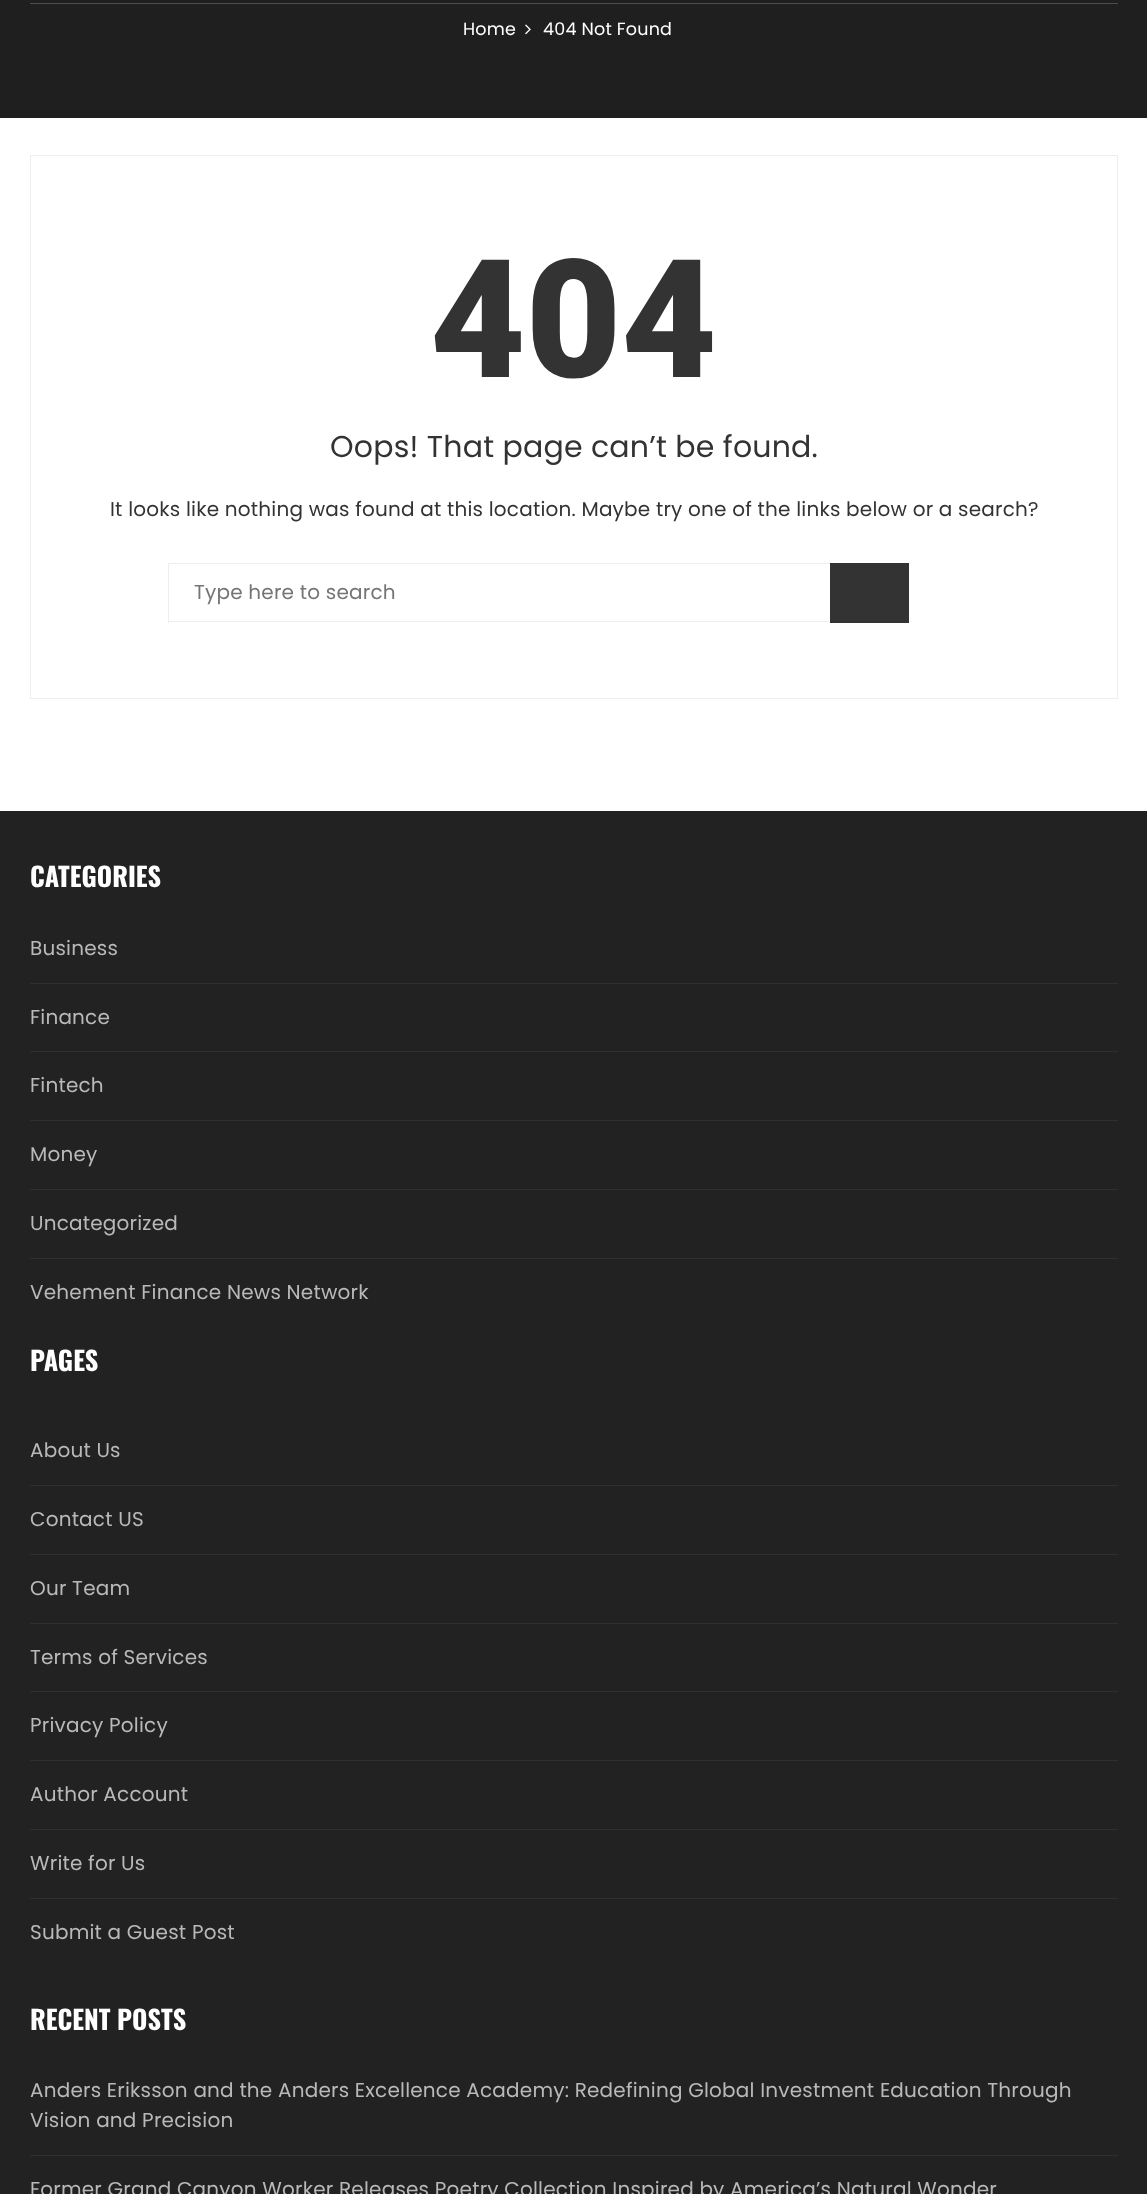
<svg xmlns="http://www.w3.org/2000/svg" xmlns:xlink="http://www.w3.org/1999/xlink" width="1147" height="2194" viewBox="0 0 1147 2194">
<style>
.cls-1{font:17.5px Poppins;letter-spacing:0.2px;fill:#ffffff}
.cls-2{font:900 165px Roboto;fill:#333333}
.cls-3{font:30px Poppins;letter-spacing:0.2px;fill:#333333}
.cls-4{font:20px Poppins;letter-spacing:0.2px;fill:#333333}
.cls-5{font:20px Poppins;letter-spacing:0.2px;fill:#757575}
.cls-6{font:bold 26.25px Oswald;fill:#ffffff}
.cls-7{font:20px Poppins;letter-spacing:0.2px;fill:#b9b9b9}
</style>
<rect width="100%" height="100%" fill="#ffffff"/>
<rect fill="#1f1f1f" x="0" y="0" width="1147" height="118"/>
<rect fill="#4c4c4c" x="30" y="3" width="1088" height="1"/>
<image xlink:href="image0.png" x="525" y="24" width="6" height="11"/>
<rect fill="none" stroke="#eeeeee" x="30.5" y="155.5" width="1087" height="543"/>
<rect fill="#eeeeee" x="168" y="563" width="662" height="1"/>
<rect fill="#eeeeee" x="168" y="621" width="662" height="1"/>
<rect fill="#eeeeee" x="168" y="563" width="1" height="60"/>
<rect fill="#333333" x="830" y="563" width="79" height="60"/>
<rect fill="#222222" x="0" y="811" width="1147" height="1383"/>
<rect fill="#2f2f2f" x="30" y="983" width="1088" height="1"/>
<rect fill="#2f2f2f" x="30" y="1051" width="1088" height="1"/>
<rect fill="#2f2f2f" x="30" y="1120" width="1088" height="1"/>
<rect fill="#2f2f2f" x="30" y="1189" width="1088" height="1"/>
<rect fill="#2f2f2f" x="30" y="1258" width="1088" height="1"/>
<rect fill="#2f2f2f" x="30" y="1485" width="1088" height="1"/>
<rect fill="#2f2f2f" x="30" y="1554" width="1088" height="1"/>
<rect fill="#2f2f2f" x="30" y="1623" width="1088" height="1"/>
<rect fill="#2f2f2f" x="30" y="1691" width="1088" height="1"/>
<rect fill="#2f2f2f" x="30" y="1760" width="1088" height="1"/>
<rect fill="#2f2f2f" x="30" y="1829" width="1088" height="1"/>
<rect fill="#2f2f2f" x="30" y="1898" width="1088" height="1"/>
<rect fill="#2f2f2f" x="30" y="2155" width="1088" height="1"/>
<text class="cls-1" x="463" y="35">Home</text>
<text class="cls-1" x="543" y="35">404 Not Found</text>
<text class="cls-2" x="430" y="377">404</text>
<text class="cls-3" x="330" y="457">Oops! That page can’t be found.</text>
<text class="cls-4" x="110" y="516">It looks like nothing was found at this location. Maybe try one of the links below or a search?</text>
<text class="cls-5" x="194" y="599">Type here to search</text>
<text class="cls-6" x="30" y="887">CATEGORIES</text>
<text class="cls-7" x="30" y="955">Business</text>
<text class="cls-7" x="30" y="1024">Finance</text>
<text class="cls-7" x="30" y="1092">Fintech</text>
<text class="cls-7" x="30" y="1161">Money</text>
<text class="cls-7" x="30" y="1230">Uncategorized</text>
<text class="cls-7" x="30" y="1299">Vehement Finance News Network</text>
<text class="cls-6" x="30" y="1371">PAGES</text>
<text class="cls-7" x="30" y="1457">About Us</text>
<text class="cls-7" x="30" y="1526">Contact US</text>
<text class="cls-7" x="30" y="1595">Our Team</text>
<text class="cls-7" x="30" y="1664">Terms of Services</text>
<text class="cls-7" x="30" y="1732">Privacy Policy</text>
<text class="cls-7" x="30" y="1801">Author Account</text>
<text class="cls-7" x="30" y="1870">Write for Us</text>
<text class="cls-7" x="30" y="1939">Submit a Guest Post</text>
<text class="cls-6" x="30" y="2030">RECENT POSTS</text>
<text class="cls-7"><tspan x="30" y="2097">Anders Eriksson and the Anders Excellence Academy: Redefining Global Investment Education Through</tspan><tspan x="30" y="2127">Vision and Precision</tspan></text>
<text class="cls-7" x="30" y="2196">Former Grand Canyon Worker Releases Poetry Collection Inspired by America’s Natural Wonder</text>
</svg>
